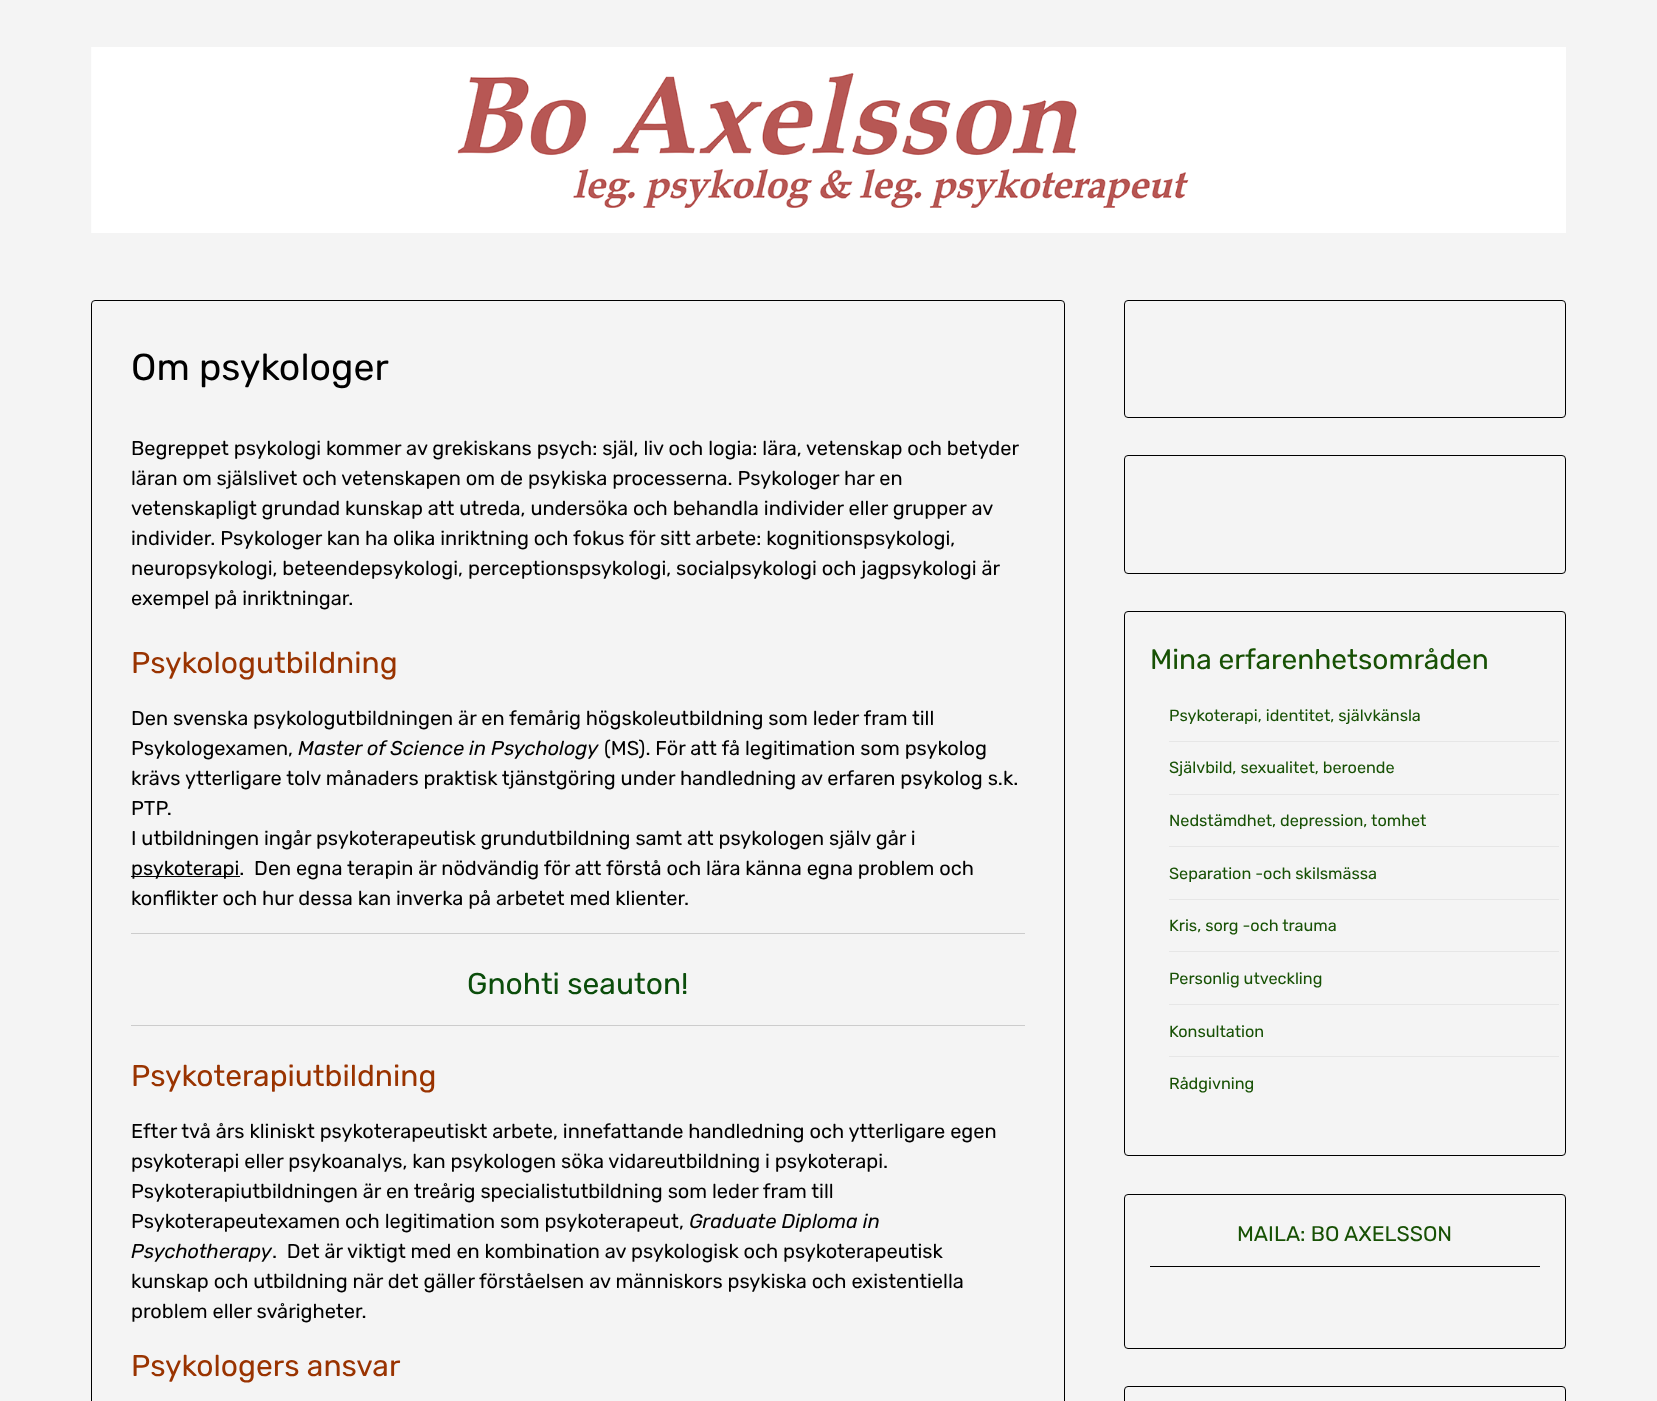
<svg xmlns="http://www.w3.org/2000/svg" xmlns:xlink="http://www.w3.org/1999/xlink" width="1657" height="1401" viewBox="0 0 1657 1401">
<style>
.cls-1{font:37.5px Rubik;fill:#000000}
.cls-2{font:20px Rubik;fill:#000000}
.cls-3{font:30px Rubik;fill:#993300}
.cls-4{font:italic 20px Rubik;fill:#000000}
.cls-5{font:30px Rubik;fill:#0b4d0b}
.cls-6{font:28.1px Rubik;fill:#175104}
.cls-7{font:16.25px Rubik;fill:#175104}
.cls-8{font:21.25px Rubik;fill:#175104}
</style>
<rect width="100%" height="100%" fill="#f4f4f4"/>
<image xlink:href="image0.png" x="91" y="47" width="1475" height="186"/>
<rect fill="none" stroke="#000000" x="91.5" y="300.5" width="973" height="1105" rx="3.5"/>
<rect fill="#000000" x="131" y="876" width="109" height="1"/>
<rect fill="#cccccc" x="131" y="933" width="894" height="1"/>
<rect fill="#cccccc" x="131" y="1025" width="894" height="1"/>
<rect fill="none" stroke="#000000" x="1124.5" y="300.5" width="441" height="117" rx="3.5"/>
<rect fill="none" stroke="#000000" x="1124.5" y="455.5" width="441" height="118" rx="3.5"/>
<rect fill="none" stroke="#000000" x="1124.5" y="611.5" width="441" height="544" rx="3.5"/>
<rect fill="#e6e6e6" x="1169" y="741" width="390" height="1"/>
<rect fill="#e6e6e6" x="1169" y="794" width="390" height="1"/>
<rect fill="#e6e6e6" x="1169" y="846" width="390" height="1"/>
<rect fill="#e6e6e6" x="1169" y="899" width="390" height="1"/>
<rect fill="#e6e6e6" x="1169" y="951" width="390" height="1"/>
<rect fill="#e6e6e6" x="1169" y="1004" width="390" height="1"/>
<rect fill="#e6e6e6" x="1169" y="1056" width="390" height="1"/>
<rect fill="none" stroke="#000000" x="1124.5" y="1194.5" width="441" height="154" rx="3.5"/>
<rect fill="#000000" x="1150" y="1266" width="390" height="1"/>
<rect fill="none" stroke="#000000" x="1124.5" y="1386.5" width="441" height="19" rx="3.5"/>
<text class="cls-1" x="131" y="380">Om psykologer</text>
<text class="cls-2"><tspan x="131" y="455">Begreppet psykologi kommer av grekiskans psych: själ, liv och logia: lära, vetenskap och betyder</tspan><tspan x="131" y="485">läran om själslivet och vetenskapen om de psykiska processerna. Psykologer har en</tspan><tspan x="131" y="515">vetenskapligt grundad kunskap att utreda, undersöka och behandla individer eller grupper av</tspan><tspan x="131" y="545">individer. Psykologer kan ha olika inriktning och fokus för sitt arbete: kognitionspsykologi,</tspan><tspan x="131" y="575">neuropsykologi, beteendepsykologi, perceptionspsykologi, socialpsykologi och jagpsykologi är</tspan><tspan x="131" y="605">exempel på inriktningar.</tspan></text>
<text class="cls-3" x="131" y="673">Psykologutbildning</text>
<text class="cls-2"><tspan x="131" y="725">Den svenska psykologutbildningen är en femårig högskoleutbildning som leder fram till</tspan><tspan x="131" y="755">Psykologexamen,</tspan></text>
<text class="cls-4" x="298" y="755">Master of Science in Psychology</text>
<text class="cls-2" x="604" y="755">(MS). För att få legitimation som psykolog</text>
<text class="cls-2" xml:space="preserve"><tspan x="131" y="785">krävs ytterligare tolv månaders praktisk tjänstgöring under handledning av erfaren psykolog s.k.</tspan><tspan x="131" y="815">PTP.</tspan><tspan x="131" y="845">I utbildningen ingår psykoterapeutisk grundutbildning samt att psykologen själv går i</tspan><tspan x="131" y="875">psykoterapi.  Den egna terapin är nödvändig för att förstå och lära känna egna problem och</tspan><tspan x="131" y="905">konflikter och hur dessa kan inverka på arbetet med klienter.</tspan></text>
<text class="cls-5" x="467" y="994">Gnohti seauton!</text>
<text class="cls-3" x="131" y="1086">Psykoterapiutbildning</text>
<text class="cls-2"><tspan x="131" y="1138">Efter två års kliniskt psykoterapeutiskt arbete, innefattande handledning och ytterligare egen</tspan><tspan x="131" y="1168">psykoterapi eller psykoanalys, kan psykologen söka vidareutbildning i psykoterapi.</tspan><tspan x="131" y="1198">Psykoterapiutbildningen är en treårig specialistutbildning som leder fram till</tspan><tspan x="131" y="1228">Psykoterapeutexamen och legitimation som psykoterapeut,</tspan></text>
<text class="cls-4" x="689" y="1228">Graduate Diploma in</text>
<text class="cls-4" x="131" y="1258">Psychotherapy</text>
<text class="cls-2" xml:space="preserve" x="272" y="1258">.  Det är viktigt med en kombination av psykologisk och psykoterapeutisk</text>
<text class="cls-2"><tspan x="131" y="1288">kunskap och utbildning när det gäller förståelsen av människors psykiska och existentiella</tspan><tspan x="131" y="1318">problem eller svårigheter.</tspan></text>
<text class="cls-3" x="131" y="1376">Psykologers ansvar</text>
<text class="cls-6" x="1150" y="669">Mina erfarenhetsområden</text>
<text class="cls-7" x="1169" y="721">Psykoterapi, identitet, självkänsla</text>
<text class="cls-7" x="1169" y="773">Självbild, sexualitet, beroende</text>
<text class="cls-7" x="1169" y="826">Nedstämdhet, depression, tomhet</text>
<text class="cls-7" x="1169" y="879">Separation -och skilsmässa</text>
<text class="cls-7" x="1169" y="931">Kris, sorg -och trauma</text>
<text class="cls-7" x="1169" y="984">Personlig utveckling</text>
<text class="cls-7" x="1169" y="1037">Konsultation</text>
<text class="cls-7" x="1169" y="1089">Rådgivning</text>
<text class="cls-8" x="1237" y="1241">MAILA: BO AXELSSON</text>
</svg>
